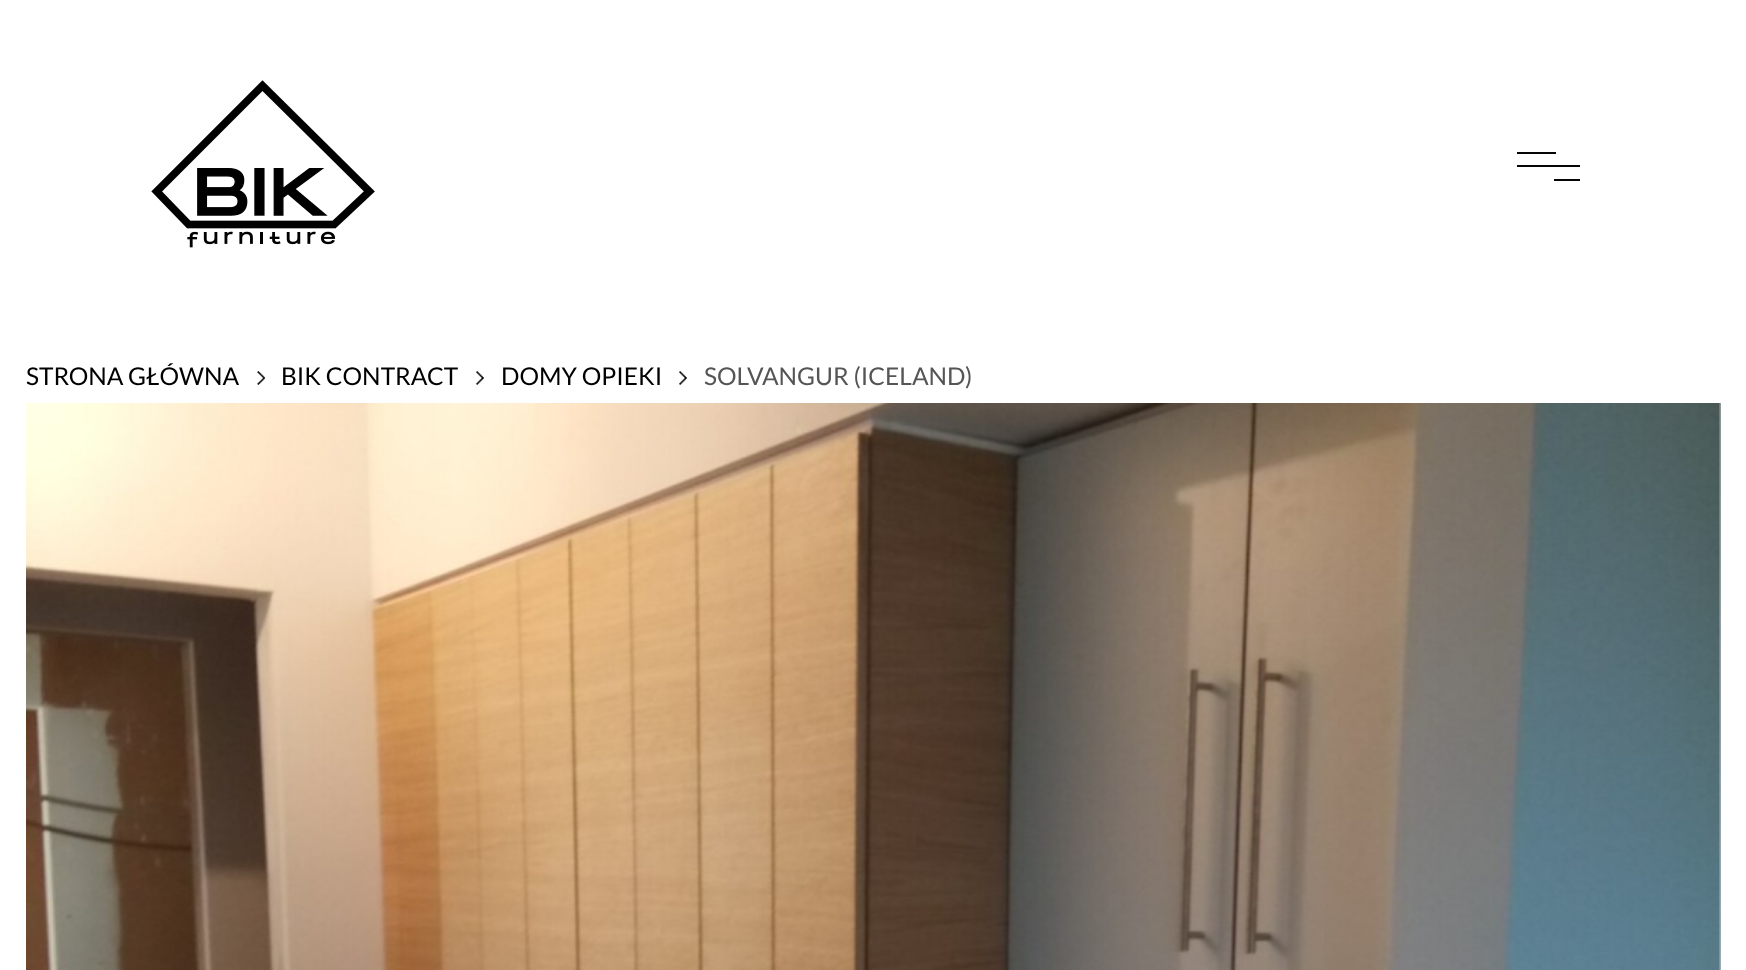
<svg xmlns="http://www.w3.org/2000/svg" xmlns:xlink="http://www.w3.org/1999/xlink" width="1746" height="970" viewBox="0 0 1746 970">
<style>
.cls-1{font:24.5px Lato;fill:#000000}
.cls-2{font:24.5px Lato;fill:#555555}
</style>
<rect width="100%" height="100%" fill="#ffffff"/>
<image xlink:href="image0.png" x="151" y="80" width="224" height="168"/>
<rect fill="#050505" x="1517" y="152" width="39" height="2"/>
<rect fill="#050505" x="1517" y="165" width="63" height="2"/>
<rect fill="#050505" x="1554" y="179" width="26" height="2"/>
<image xlink:href="image1.png" x="257" y="371" width="9" height="14"/>
<image xlink:href="image2.png" x="476" y="371" width="8" height="14"/>
<image xlink:href="image2.png" x="679" y="371" width="8" height="14"/>
<image xlink:href="image3.png" x="26" y="403" width="1695" height="567"/>
<text class="cls-1" x="26" y="385">STRONA GŁÓWNA</text>
<text class="cls-1" x="281" y="385">BIK CONTRACT</text>
<text class="cls-1" x="501" y="385">DOMY OPIEKI</text>
<text class="cls-2" x="704" y="385">SOLVANGUR (ICELAND)</text>
</svg>
